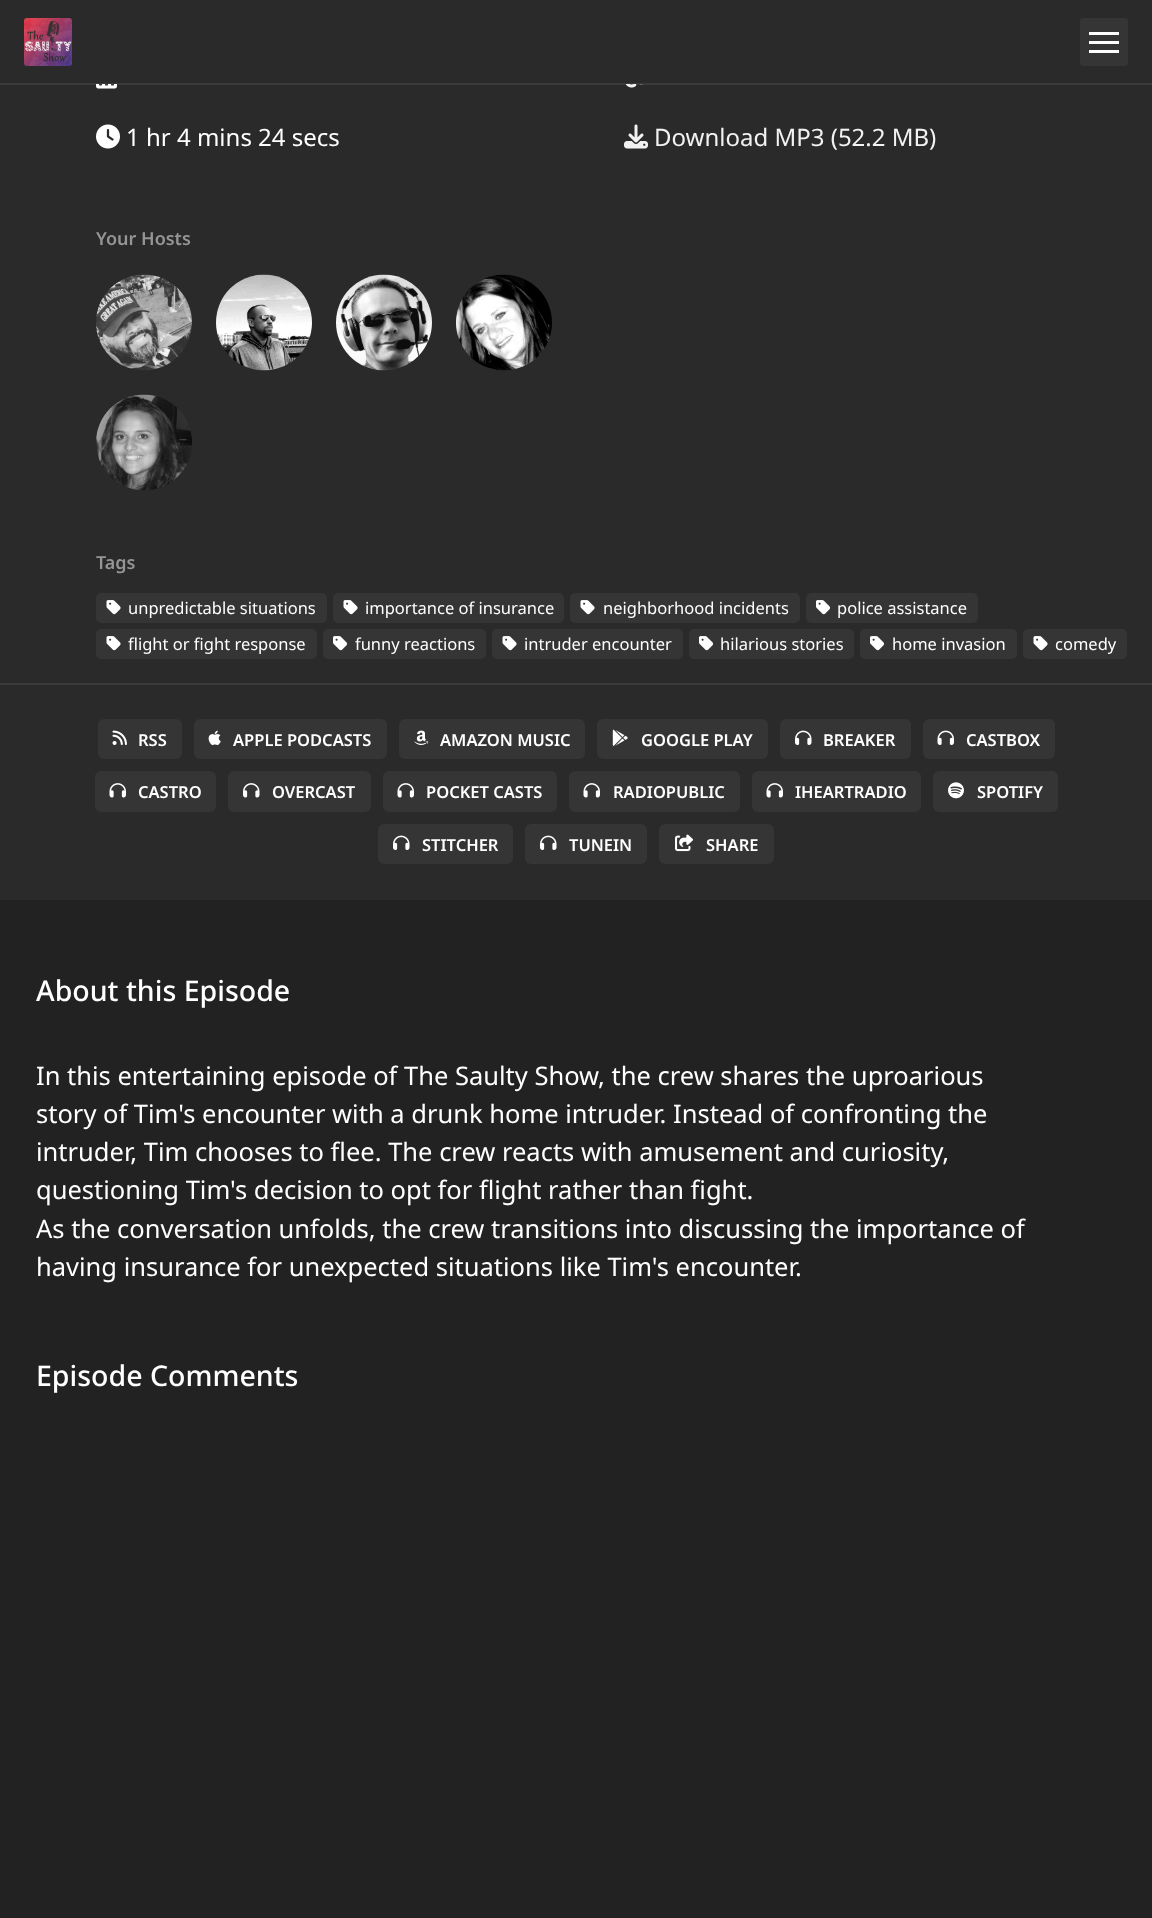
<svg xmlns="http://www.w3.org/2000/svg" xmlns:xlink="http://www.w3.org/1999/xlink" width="1152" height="1918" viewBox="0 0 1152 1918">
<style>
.cls-1{font:24px Noto Sans;fill:#ffffff}
.cls-2{font:24px Noto Sans;fill:#f2f2f2}
.cls-3{font:600 18px Noto Sans;fill:#959595}
.cls-4{font:16.5px Noto Sans;fill:#ffffff}
.cls-5{font:600 16.5px Noto Sans;fill:#ffffff}
.cls-6{font:500 28.5px Noto Sans;fill:#ffffff}
.cls-7{font:25.5px Noto Sans;fill:#ffffff}
</style>
<rect width="100%" height="100%" fill="#222222"/>
<rect fill="#2a2a2a" x="0" y="0" width="1152" height="683"/>
<image xlink:href="image1.png" x="96" y="84" width="21" height="5"/>
<image xlink:href="image3.png" x="625" y="84" width="18" height="4"/>
<rect fill="#ffffff" fill-opacity="0.08" x="0" y="83" width="1152" height="2"/>
<image xlink:href="image0.png" x="24" y="18" width="48" height="48"/>
<rect fill="#353535" x="1080" y="18" width="48" height="48" rx="3"/>
<rect fill="#ffffff" x="1089" y="32" width="30" height="3"/>
<rect fill="#ffffff" x="1089" y="41" width="30" height="3"/>
<rect fill="#ffffff" x="1089" y="50" width="30" height="3"/>
<image xlink:href="image2.png" x="96" y="124" width="24" height="25"/>
<image xlink:href="image4.png" x="624" y="124" width="24" height="25"/>
<image xlink:href="image5.png" x="96" y="274" width="96" height="97"/>
<image xlink:href="image6.png" x="216" y="274" width="96" height="97"/>
<image xlink:href="image7.png" x="336" y="274" width="96" height="97"/>
<image xlink:href="image8.png" x="456" y="274" width="96" height="97"/>
<image xlink:href="image9.png" x="96" y="394" width="96" height="97"/>
<rect fill="#353535" x="96" y="593" width="231" height="30" rx="5"/>
<image xlink:href="image10.png" x="106" y="600" width="15" height="15"/>
<rect fill="#353535" x="333" y="593" width="231" height="30" rx="5"/>
<image xlink:href="image10.png" x="343" y="600" width="15" height="15"/>
<rect fill="#353535" x="570" y="593" width="230" height="30" rx="5"/>
<image xlink:href="image10.png" x="580" y="600" width="15" height="15"/>
<rect fill="#353535" x="806" y="593" width="172" height="30" rx="5"/>
<image xlink:href="image11.png" x="816" y="600" width="15" height="15"/>
<rect fill="#353535" x="96" y="629" width="221" height="30" rx="5"/>
<image xlink:href="image10.png" x="106" y="636" width="15" height="15"/>
<rect fill="#353535" x="323" y="629" width="163" height="30" rx="5"/>
<image xlink:href="image11.png" x="333" y="636" width="15" height="15"/>
<rect fill="#353535" x="492" y="629" width="191" height="30" rx="5"/>
<image xlink:href="image10.png" x="502" y="636" width="15" height="15"/>
<rect fill="#353535" x="689" y="629" width="165" height="30" rx="5"/>
<image xlink:href="image11.png" x="699" y="636" width="15" height="15"/>
<rect fill="#353535" x="860" y="629" width="157" height="30" rx="5"/>
<image xlink:href="image11.png" x="870" y="636" width="15" height="15"/>
<rect fill="#353535" x="1023" y="629" width="104" height="30" rx="5"/>
<image xlink:href="image10.png" x="1033" y="636" width="15" height="15"/>
<rect fill="#2a2a2a" x="0" y="685" width="1152" height="215"/>
<rect fill="#3b3b3b" x="0" y="683" width="1152" height="2"/>
<rect fill="#353535" x="98" y="719" width="84" height="40" rx="6"/>
<image xlink:href="image12.png" x="112" y="730" width="15" height="15"/>
<rect fill="#353535" x="194" y="719" width="193" height="40" rx="6"/>
<image xlink:href="image13.png" x="208" y="730" width="13" height="15"/>
<rect fill="#353535" x="399" y="719" width="186" height="40" rx="6"/>
<image xlink:href="image14.png" x="414" y="730" width="15" height="15"/>
<rect fill="#353535" x="597" y="719" width="171" height="40" rx="6"/>
<image xlink:href="image15.png" x="612" y="729" width="16" height="17"/>
<rect fill="#353535" x="780" y="719" width="131" height="40" rx="6"/>
<image xlink:href="image16.png" x="795" y="730" width="17" height="15"/>
<rect fill="#353535" x="923" y="719" width="132" height="40" rx="6"/>
<image xlink:href="image17.png" x="937" y="730" width="17" height="15"/>
<rect fill="#353535" x="95" y="771" width="121" height="41" rx="6"/>
<image xlink:href="image18.png" x="109" y="783" width="17" height="15"/>
<rect fill="#353535" x="228" y="771" width="143" height="41" rx="6"/>
<image xlink:href="image19.png" x="243" y="783" width="17" height="15"/>
<rect fill="#353535" x="383" y="771" width="174" height="41" rx="6"/>
<image xlink:href="image18.png" x="397" y="783" width="17" height="15"/>
<rect fill="#353535" x="569" y="771" width="171" height="41" rx="6"/>
<image xlink:href="image18.png" x="583" y="783" width="17" height="15"/>
<rect fill="#353535" x="752" y="771" width="169" height="41" rx="6"/>
<image xlink:href="image18.png" x="766" y="783" width="17" height="15"/>
<rect fill="#353535" x="933" y="771" width="125" height="41" rx="6"/>
<image xlink:href="image20.png" x="948" y="782" width="16" height="17"/>
<rect fill="#353535" x="378" y="824" width="135" height="40" rx="6"/>
<image xlink:href="image16.png" x="393" y="835" width="17" height="15"/>
<rect fill="#353535" x="525" y="824" width="122" height="40" rx="6"/>
<image xlink:href="image16.png" x="540" y="835" width="17" height="15"/>
<rect fill="#353535" x="659" y="824" width="115" height="40" rx="6"/>
<image xlink:href="image21.png" x="675" y="834" width="18" height="18"/>
<text class="cls-1" x="126" y="146">1 hr 4 mins 24 secs</text>
<text class="cls-2" x="654" y="146">Download MP3 (52.2 MB)</text>
<text class="cls-3" x="96" y="245">Your Hosts</text>
<text class="cls-3" x="96" y="569">Tags</text>
<text class="cls-4" x="128" y="614">unpredictable situations</text>
<text class="cls-4" x="365" y="614">importance of insurance</text>
<text class="cls-4" x="603" y="614">neighborhood incidents</text>
<text class="cls-4" x="837" y="614">police assistance</text>
<text class="cls-4" x="128" y="650">flight or fight response</text>
<text class="cls-4" x="355" y="650">funny reactions</text>
<text class="cls-4" x="524" y="650">intruder encounter</text>
<text class="cls-4" x="720" y="650">hilarious stories</text>
<text class="cls-4" x="892" y="650">home invasion</text>
<text class="cls-4" x="1055" y="650">comedy</text>
<text class="cls-5" x="138" y="746">RSS</text>
<text class="cls-5" x="233" y="746">APPLE PODCASTS</text>
<text class="cls-5" x="440" y="746">AMAZON MUSIC</text>
<text class="cls-5" x="641" y="746">GOOGLE PLAY</text>
<text class="cls-5" x="823" y="746">BREAKER</text>
<text class="cls-5" x="966" y="746">CASTBOX</text>
<text class="cls-5" x="138" y="798">CASTRO</text>
<text class="cls-5" x="272" y="798">OVERCAST</text>
<text class="cls-5" x="426" y="798">POCKET CASTS</text>
<text class="cls-5" x="613" y="798">RADIOPUBLIC</text>
<text class="cls-5" x="795" y="798">IHEARTRADIO</text>
<text class="cls-5" x="977" y="798">SPOTIFY</text>
<text class="cls-5" x="422" y="851">STITCHER</text>
<text class="cls-5" x="569" y="851">TUNEIN</text>
<text class="cls-5" x="706" y="851">SHARE</text>
<text class="cls-6" x="36" y="1001">About this Episode</text>
<text class="cls-7"><tspan x="36" y="1085">In this entertaining episode of The Saulty Show, the crew shares the uproarious</tspan><tspan x="36" y="1123">story of Tim's encounter with a drunk home intruder. Instead of confronting the</tspan><tspan x="36" y="1161">intruder, Tim chooses to flee. The crew reacts with amusement and curiosity,</tspan><tspan x="36" y="1199">questioning Tim's decision to opt for flight rather than fight.</tspan><tspan x="36" y="1238">As the conversation unfolds, the crew transitions into discussing the importance of</tspan><tspan x="36" y="1276">having insurance for unexpected situations like Tim's encounter.</tspan></text>
<text class="cls-6" x="36" y="1386">Episode Comments</text>
</svg>
